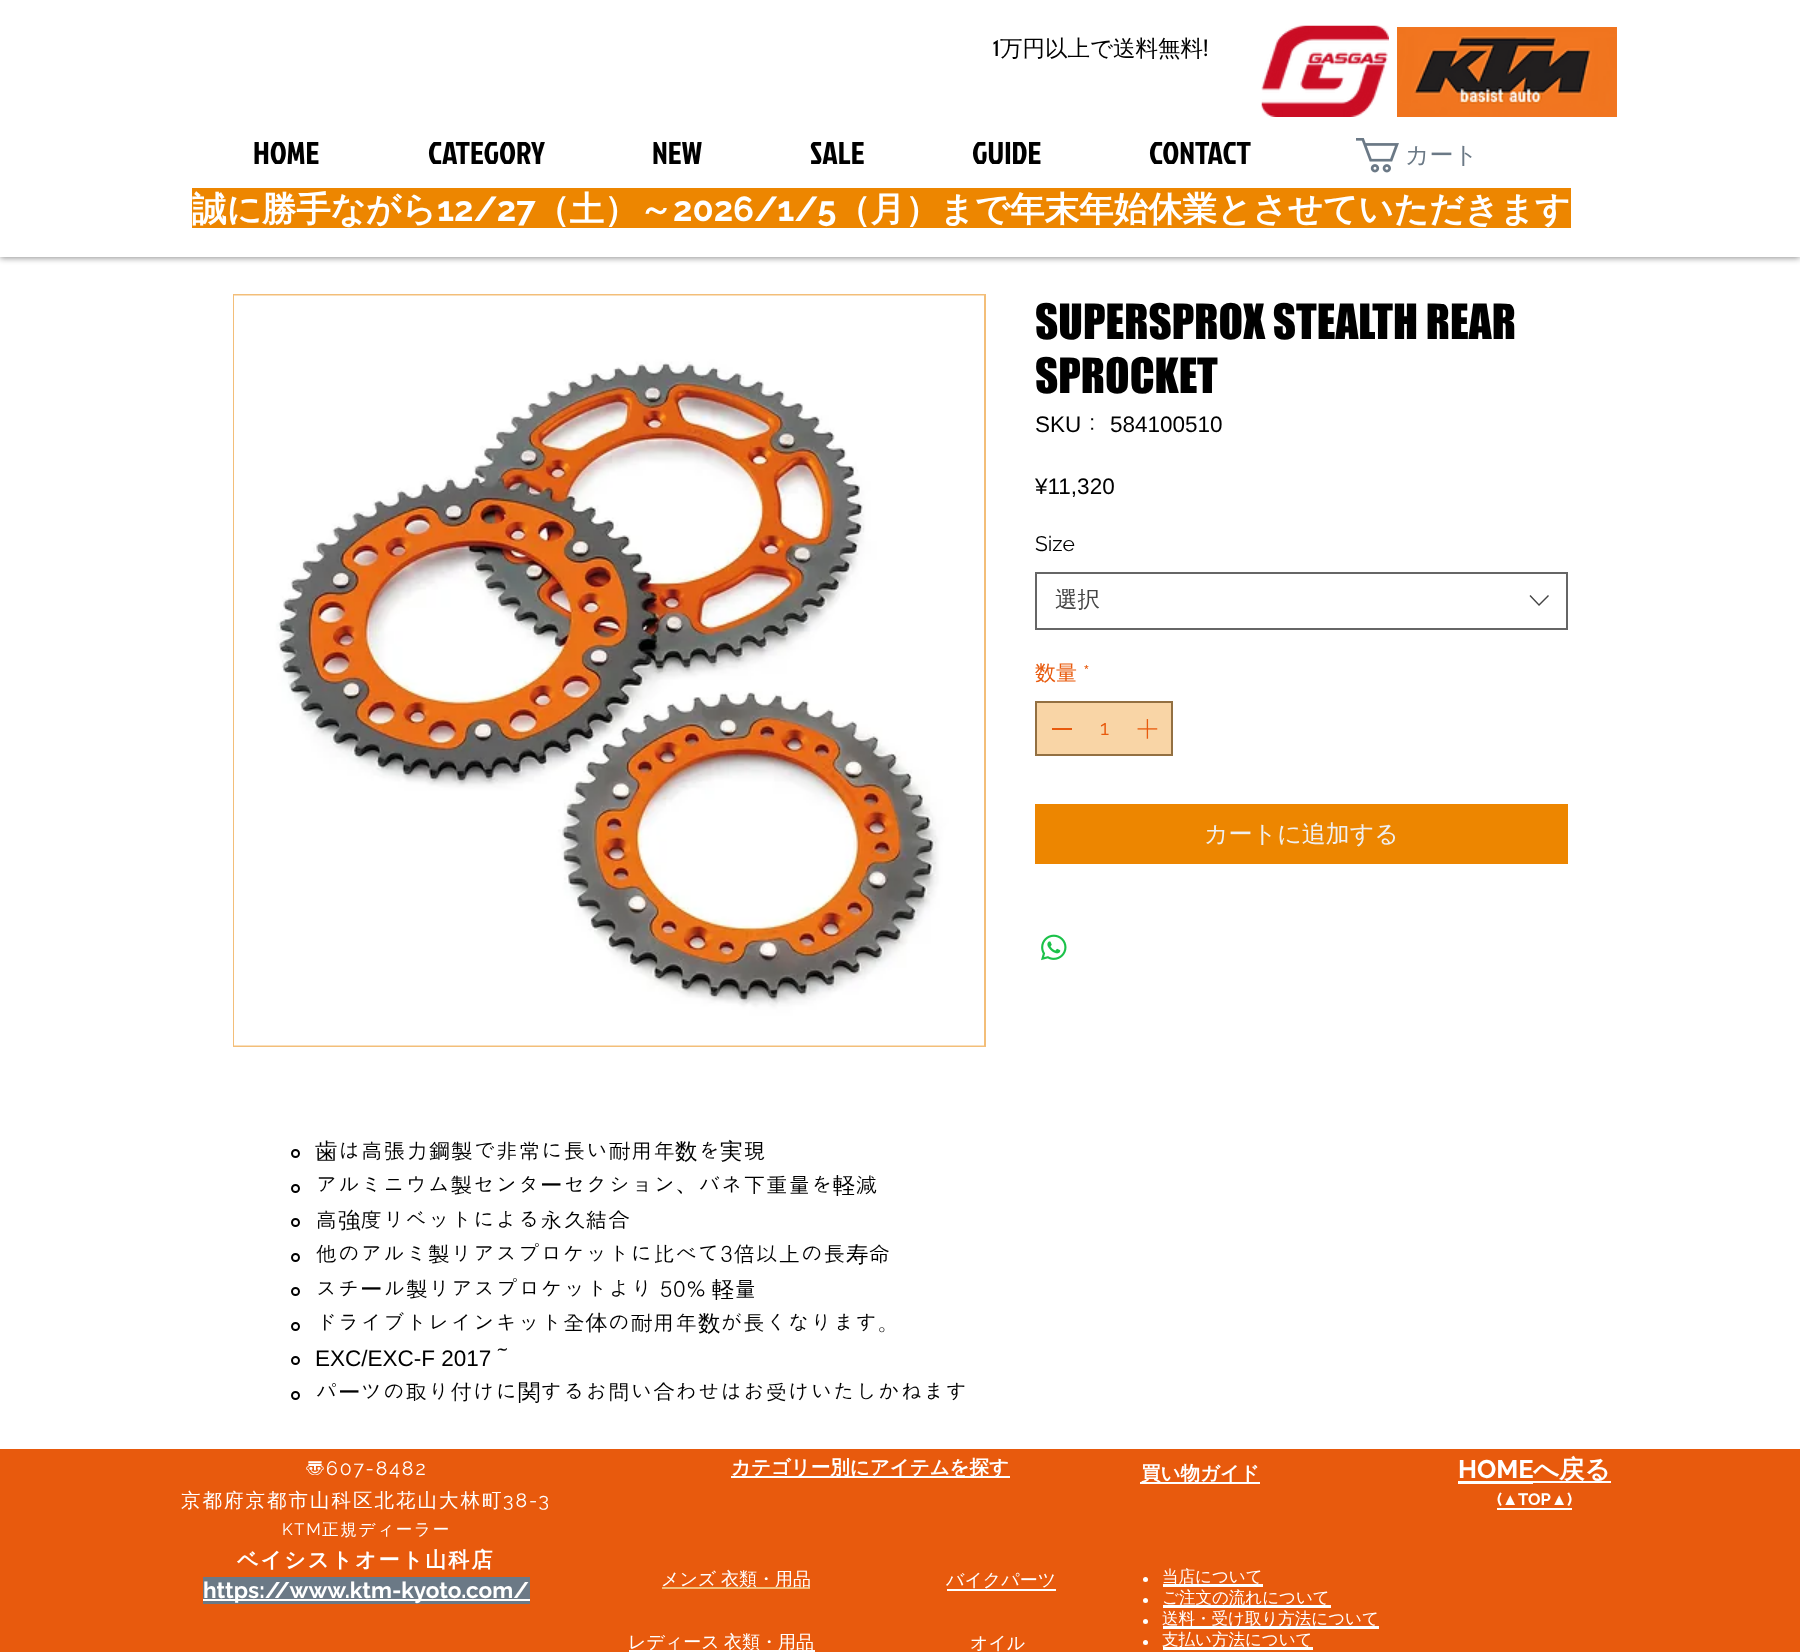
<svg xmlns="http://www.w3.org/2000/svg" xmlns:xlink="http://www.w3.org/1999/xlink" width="1800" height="1652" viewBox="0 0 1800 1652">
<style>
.cls-1{font:22.5px 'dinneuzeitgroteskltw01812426';fill:#000000}
.cls-2{font:500 22.5px WenQuanYi Zen Hei;fill:#000000}
.cls-3{font:31.5px Jockey One;fill:#000000}
.cls-4{font:500 24px WenQuanYi Zen Hei;fill:#6b7986}
.cls-5{font:bold 34.5px WenQuanYi Zen Hei;fill:#ffffff}
.cls-6{font:bold 34.5px Raleway;fill:#ffffff}
.cls-7{font:45px 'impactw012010';fill:#000000}
.cls-8{font:22.5px Liberation Sans;fill:#000000}
.cls-9{font:22.5px Dotum;fill:#000000}
.cls-10{font:21px Raleway;fill:#000000}
.cls-11{font:500 22.5px WenQuanYi Zen Hei;fill:#444444}
.cls-12{font:500 21px WenQuanYi Zen Hei;fill:#e85a0d}
.cls-13{font:21px Raleway;fill:#e85a0d}
.cls-14{font:500 24px WenQuanYi Zen Hei;fill:#f0f0f0}
.cls-15{font:500 19.5px WenQuanYi Zen Hei;letter-spacing:2px;fill:#ffffff}
.cls-16{font:19.5px Raleway;letter-spacing:2px;fill:#ffffff}
.cls-17{font:16.5px Raleway;letter-spacing:1.75px;fill:#ffffff}
.cls-18{font:500 16.5px WenQuanYi Zen Hei;letter-spacing:1.75px;fill:#ffffff}
.cls-19{font:bold 21px WenQuanYi Zen Hei;letter-spacing:2.1px;fill:#ffffff}
.cls-20{font:bold 22.5px Raleway;fill:#ffffff}
.cls-21{font:bold 19.5px WenQuanYi Zen Hei;fill:#ffffff}
.cls-22{font:bold 25.5px Raleway;fill:#ffffff}
.cls-23{font:bold 25.5px WenQuanYi Zen Hei;fill:#ffffff}
.cls-24{font:bold 16.5px Raleway;fill:#ffffff}
.cls-25{font:bold 16.5px Liberation Sans;fill:#ffffff}
.cls-26{font:500 18px WenQuanYi Zen Hei;fill:#ffffff}
.cls-27{font:500 16.5px WenQuanYi Zen Hei;fill:#ffffff}
</style>
<rect width="100%" height="100%" fill="#ffffff"/>
<rect fill="#000000" fill-opacity="0.44" filter="blur(3px)" x="0" y="2" width="1800" height="256"/>
<rect fill="#ffffff" x="0" y="0" width="1800" height="257"/>
<image xlink:href="image0.png" x="1261" y="25" width="128" height="92"/>
<image xlink:href="image1.png" x="1397" y="27" width="220" height="90"/>
<image xlink:href="image2.png" x="1356" y="138" width="43" height="35"/>
<rect fill="#ed8600" x="192" y="188" width="1379" height="40"/>
<rect fill="none" stroke="#666666" stroke-width="2" x="1036" y="573" width="531" height="56"/>
<path fill="#444444" fill-rule="evenodd" d="M1548 595L1549 596L1539 606L1529.5 596L1530.5 595L1539 604Z"/>
<rect fill="#f9d5a6" stroke="#937042" stroke-width="2" x="1036" y="702" width="136" height="53"/>
<rect fill="#e85a0d" x="1052" y="728" width="20" height="2"/>
<image xlink:href="image3.png" x="1137" y="719" width="21" height="20"/>
<rect fill="#ed8600" x="1035" y="804" width="533" height="60"/>
<image xlink:href="image4.png" x="1041" y="934" width="26" height="27"/>
<rect fill="none" stroke="#f3be79" stroke-width="2" x="234" y="295" width="751" height="751"/>
<image xlink:href="image5.png" x="234" y="295" width="750" height="751"/>
<circle fill="none" stroke="#000000" stroke-width="2" cx="295.5" cy="1153.5" r="3.5"/>
<circle fill="none" stroke="#000000" stroke-width="2" cx="295.5" cy="1188.5" r="3.5"/>
<circle fill="none" stroke="#000000" stroke-width="2" cx="295.5" cy="1222.5" r="3.5"/>
<circle fill="none" stroke="#000000" stroke-width="2" cx="295.5" cy="1257.5" r="3.5"/>
<circle fill="none" stroke="#000000" stroke-width="2" cx="295.5" cy="1291.5" r="3.5"/>
<circle fill="none" stroke="#000000" stroke-width="2" cx="295.5" cy="1326.5" r="3.5"/>
<circle fill="none" stroke="#000000" stroke-width="2" cx="295.5" cy="1360.5" r="3.5"/>
<circle fill="none" stroke="#000000" stroke-width="2" cx="295.5" cy="1395.5" r="3.5"/>
<rect fill="#e85a0d" x="0" y="1449" width="1800" height="203"/>
<rect fill="#6b7986" x="203" y="1577" width="327" height="27"/>
<rect fill="#ffffff" x="203" y="1599" width="327" height="2"/>
<rect fill="#ffffff" x="731" y="1476" width="279" height="2"/>
<rect fill="#ffffff" x="1140" y="1482" width="120" height="2"/>
<rect fill="#ffffff" x="1458" y="1481" width="75" height="3"/>
<rect fill="#ffffff" x="1533" y="1481" width="78" height="2"/>
<rect fill="#ffffff" x="1497" y="1508" width="75" height="2"/>
<rect fill="#f3be79" x="662" y="1587" width="148" height="2"/>
<rect fill="#ffffff" x="947" y="1589" width="109" height="2"/>
<circle fill="#ffffff" cx="1145.5" cy="1579.5" r="2.5"/>
<rect fill="#ffffff" x="1163" y="1584" width="100" height="3"/>
<circle fill="#ffffff" cx="1145.5" cy="1600.5" r="2.5"/>
<rect fill="#ffffff" x="1163" y="1605" width="168" height="3"/>
<circle fill="#ffffff" cx="1145.5" cy="1621.5" r="2.5"/>
<rect fill="#ffffff" x="1163" y="1626" width="216" height="3"/>
<circle fill="#ffffff" cx="1145.5" cy="1642.5" r="2.5"/>
<rect fill="#ffffff" x="1163" y="1647" width="150" height="3"/>
<rect fill="#ffffff" x="629" y="1650" width="186" height="2"/>
<text class="cls-1" x="993" y="56">1</text>
<text class="cls-2" x="1000" y="56">万円以上で送料無料</text>
<text class="cls-1" x="1203" y="56">!</text>
<text class="cls-3" x="253" y="164">HOME</text>
<text class="cls-3" x="428" y="164">CATEGORY</text>
<text class="cls-3" x="652" y="164">NEW</text>
<text class="cls-3" x="810" y="164">SALE</text>
<text class="cls-3" x="972" y="164">GUIDE</text>
<text class="cls-3" x="1149" y="164">CONTACT</text>
<text class="cls-4" x="1405" y="163">カート</text>
<text class="cls-5" x="192" y="221">誠に勝手ながら</text>
<text class="cls-6" x="437" y="221">12/27</text>
<text class="cls-5" x="535" y="221">（土）～</text>
<text class="cls-6" x="673" y="221">2026/1/5</text>
<text class="cls-5" x="836" y="221">（月）まで年末年始休業とさせていただきます</text>
<text class="cls-7"><tspan x="1035" y="339">SUPERSPROX STEALTH REAR</tspan><tspan x="1035" y="393">SPROCKET</tspan></text>
<text class="cls-8" x="1035" y="432">SKU</text>
<text class="cls-9" x="1081" y="432">：</text>
<text class="cls-8" x="1110" y="432">584100510</text>
<text class="cls-8" x="1035" y="494">¥11,320</text>
<text class="cls-10" x="1035" y="551">Size</text>
<text class="cls-11" x="1055" y="607">選択</text>
<text class="cls-12" x="1035" y="680">数量</text>
<text class="cls-13" x="1083" y="680">*</text>
<text class="cls-13" x="1100" y="735">1</text>
<text class="cls-14" x="1204" y="842">カートに追加する</text>
<text class="cls-2" x="315" y="1159">歯</text>
<text class="cls-9" x="338" y="1159">は高張力鋼製で非常に長い耐用年</text>
<text class="cls-2" x="675" y="1159">数</text>
<text class="cls-9" x="698" y="1159">を</text>
<text class="cls-2" x="720" y="1159">実</text>
<text class="cls-9" x="743" y="1159">現</text>
<text class="cls-9" x="315" y="1193">アルミニウム製センタ</text>
<text class="cls-2" x="540" y="1193">ー</text>
<text class="cls-9" x="563" y="1193">セクション、バネ下重量を</text>
<text class="cls-2" x="833" y="1193">軽</text>
<text class="cls-9" x="855" y="1193">減</text>
<text class="cls-9" x="315" y="1228">高</text>
<text class="cls-2" x="338" y="1228">強</text>
<text class="cls-9" x="360" y="1228">度リベットによる永久結合</text>
<text class="cls-9" x="315" y="1262">他のアルミ製リアスプロケットに比べて3倍以上の長</text>
<text class="cls-2" x="846" y="1262">寿</text>
<text class="cls-9" x="868" y="1262">命</text>
<text class="cls-9" x="315" y="1297">スチ</text>
<text class="cls-2" x="360" y="1297">ー</text>
<text class="cls-9" x="383" y="1297" word-spacing="-1">ル製リアスプロケットより 50%</text>
<text class="cls-2" x="712" y="1297">軽</text>
<text class="cls-9" x="734" y="1297">量</text>
<text class="cls-9" x="315" y="1331">ドライブトレインキット全体の耐用年</text>
<text class="cls-2" x="698" y="1331">数</text>
<text class="cls-9" x="720" y="1331">が長くなります。</text>
<text class="cls-8" x="315" y="1366">EXC/EXC-F 2017</text>
<text class="cls-9" x="491" y="1366">～</text>
<text class="cls-9" x="315" y="1400">パ</text>
<text class="cls-2" x="338" y="1400">ー</text>
<text class="cls-9" x="360" y="1400">ツの取り付けに</text>
<text class="cls-2" x="518" y="1400">関</text>
<text class="cls-9" x="540" y="1400">するお問い合わせはお受けいたしかねます</text>
<text class="cls-15" x="305" y="1475">〠</text>
<text class="cls-16" x="326" y="1475">607-8482</text>
<text class="cls-15" x="181" y="1507">京都府京都市山科区北花山大林町</text>
<text class="cls-16" x="503" y="1507">38-3</text>
<text class="cls-17" x="282" y="1535">KTM</text>
<text class="cls-18" x="322" y="1535">正規ディーラー</text>
<text class="cls-19" x="237" y="1567">ベイシストオート山科店</text>
<text class="cls-20" x="203" y="1598">https://www.ktm-kyoto.com/</text>
<text class="cls-21" x="731" y="1474">カテゴリー別にアイテムを探す</text>
<text class="cls-21" x="1141" y="1480">買い物ガイド</text>
<text class="cls-22" x="1458" y="1478">HOME</text>
<text class="cls-23" x="1533" y="1478">へ戻る</text>
<text class="cls-24" x="1497" y="1505">(</text>
<text class="cls-25" x="1502" y="1505">▲</text>
<text class="cls-24" x="1518" y="1505">TOP</text>
<text class="cls-25" x="1551" y="1505">▲</text>
<text class="cls-24" x="1567" y="1505">)</text>
<text class="cls-26" x="661" y="1585">メンズ</text>
<text class="cls-26" x="721" y="1585">衣類・用品</text>
<text class="cls-26" x="946" y="1586">バイクパーツ</text>
<text class="cls-27"><tspan x="1162" y="1582">当店について</tspan><tspan x="1162" y="1603">ご注文の流れについて</tspan><tspan x="1162" y="1624">送料・受け取り方法について</tspan><tspan x="1162" y="1645">支払い方法について</tspan></text>
<text class="cls-26" x="628" y="1648" word-spacing="-1">レディース 衣類・用品</text>
<text class="cls-26" x="970" y="1649">オイル</text>
</svg>
